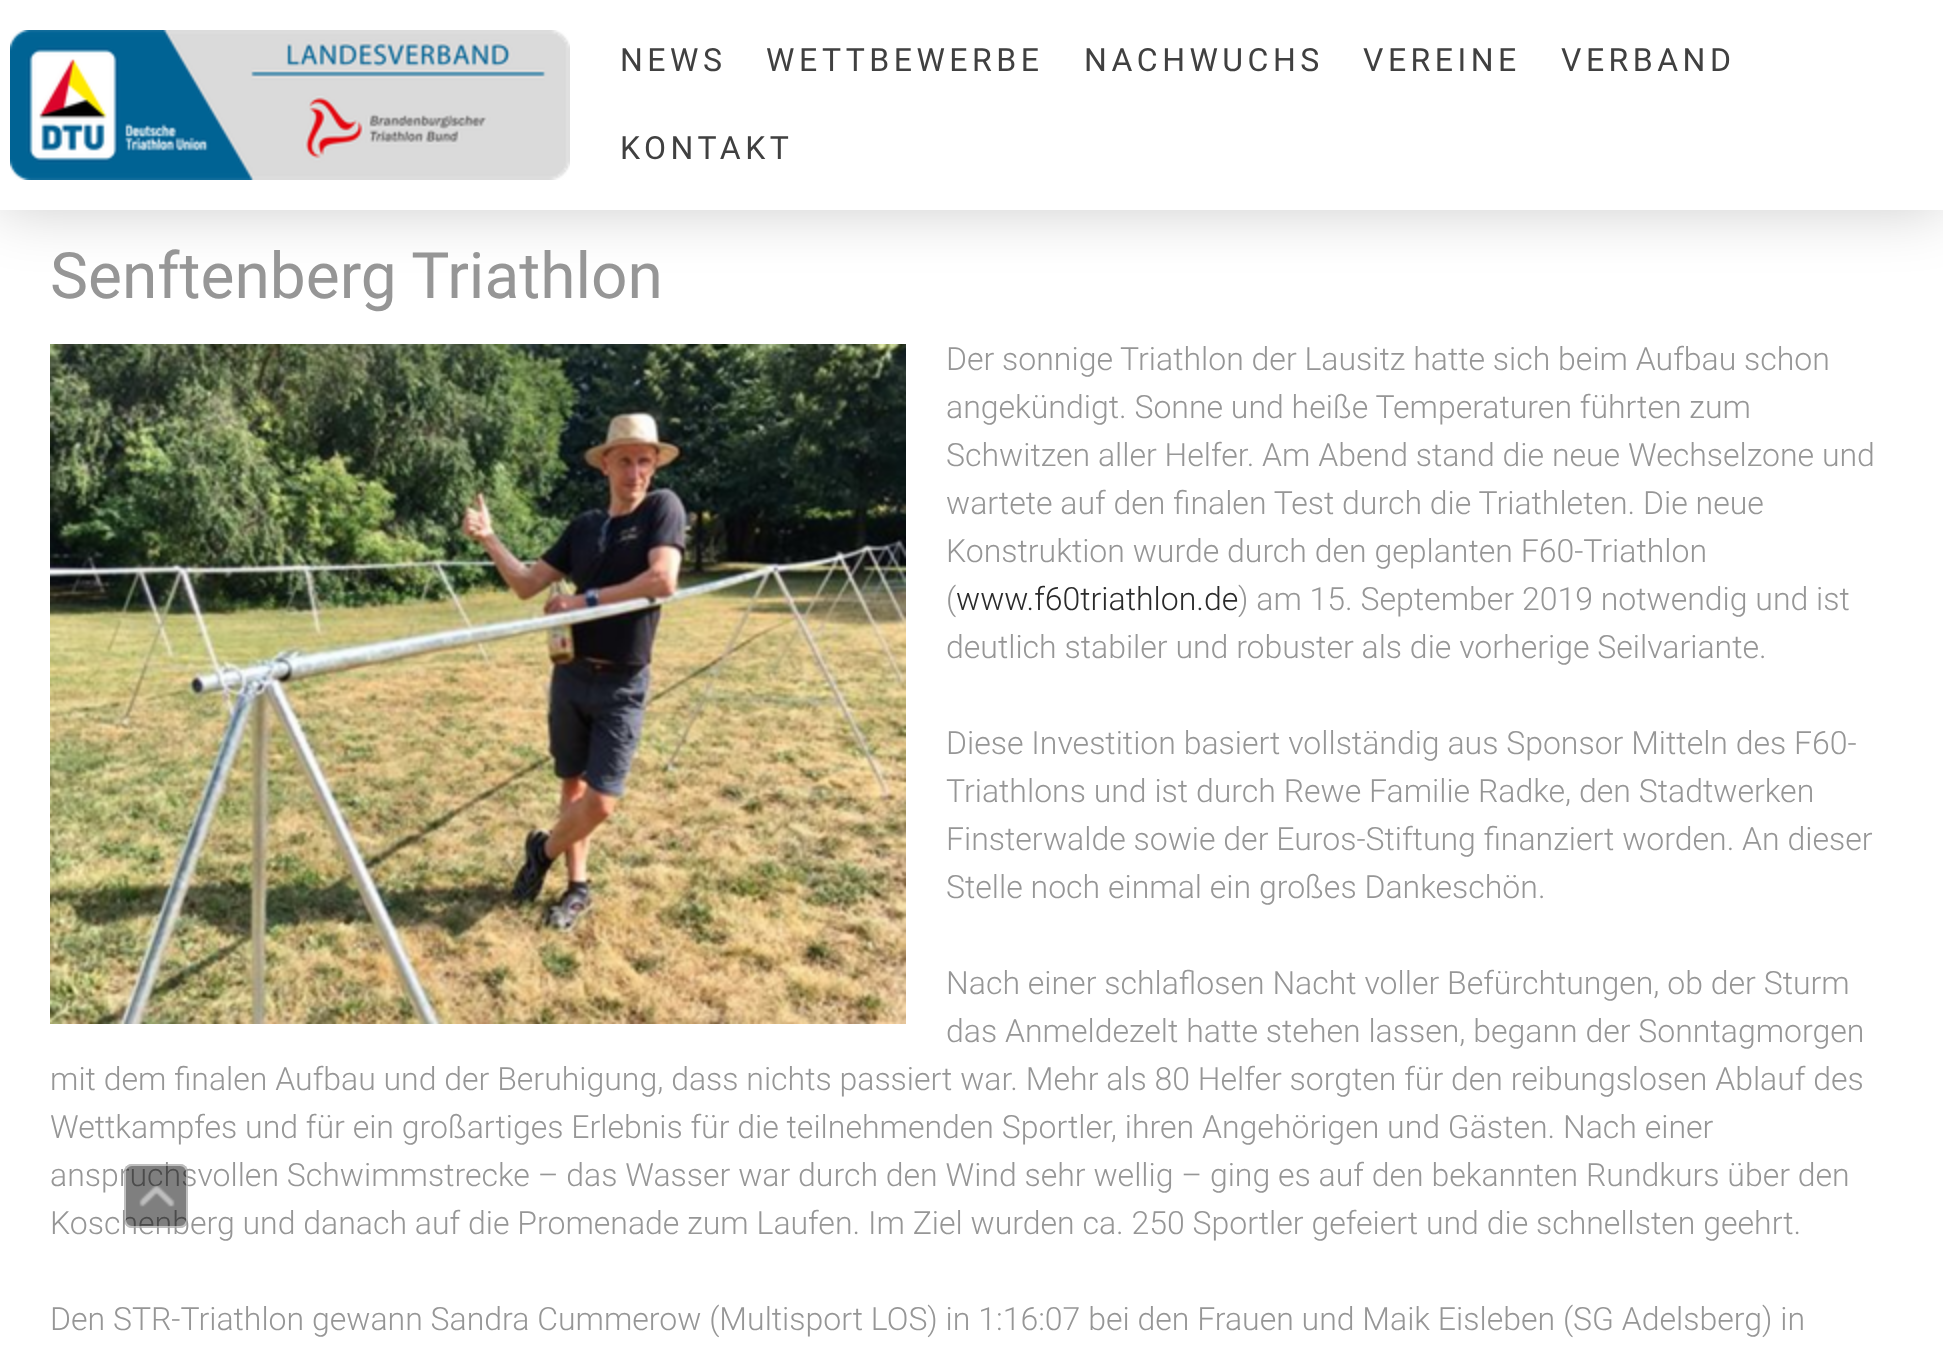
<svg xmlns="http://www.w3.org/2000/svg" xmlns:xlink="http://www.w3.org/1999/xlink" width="1943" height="1348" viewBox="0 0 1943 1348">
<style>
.cls-1{font:32px Roboto;letter-spacing:4.5px;fill:#404040}
.cls-2{font:64px Roboto;fill:#969696}
.cls-3{font:300 32px Roboto;fill:#969696}
.cls-4{font:300 32px Roboto;fill:#2a2a2a}
</style>
<rect width="100%" height="100%" fill="#ffffff"/>
<rect fill="#000000" fill-opacity="0.2" filter="blur(30px)" x="0" y="0" width="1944" height="210"/>
<rect fill="#ffffff" x="0" y="0" width="1943" height="210"/>
<image xlink:href="image0.png" x="10" y="30" width="560" height="150"/>
<image xlink:href="image1.png" x="50" y="344" width="856" height="680"/>
<text class="cls-1" x="620" y="71">NEWS</text>
<text class="cls-1" x="766" y="71">WETTBEWERBE</text>
<text class="cls-1" x="1084" y="71">NACHWUCHS</text>
<text class="cls-1" x="1363" y="71">VEREINE</text>
<text class="cls-1" x="1561" y="71">VERBAND</text>
<text class="cls-1" x="620" y="159">KONTAKT</text>
<text class="cls-2" x="50" y="298">Senftenberg Triathlon</text>
<text class="cls-3"><tspan x="946" y="370">Der sonnige Triathlon der Lausitz hatte sich beim Aufbau schon</tspan><tspan x="946" y="418">angekündigt. Sonne und heiße Temperaturen führten zum</tspan><tspan x="946" y="466">Schwitzen aller Helfer. Am Abend stand die neue Wechselzone und</tspan><tspan x="946" y="514">wartete auf den finalen Test durch die Triathleten. Die neue</tspan><tspan x="946" y="562">Konstruktion wurde durch den geplanten F60-Triathlon</tspan><tspan x="946" y="610">(</tspan></text>
<text class="cls-4" x="956" y="610">www.f60triathlon.de</text>
<text class="cls-3" x="1238" y="610">) am 15. September 2019 notwendig und ist</text>
<text class="cls-3" x="946" y="658">deutlich stabiler und robuster als die vorherige Seilvariante.</text>
<text class="cls-3"><tspan x="946" y="754">Diese Investition basiert vollständig aus Sponsor Mitteln des F60-</tspan><tspan x="946" y="802">Triathlons und ist durch Rewe Familie Radke, den Stadtwerken</tspan><tspan x="946" y="850">Finsterwalde sowie der Euros-Stiftung finanziert worden. An dieser</tspan><tspan x="946" y="898">Stelle noch einmal ein großes Dankeschön.</tspan></text>
<text class="cls-3"><tspan x="946" y="994">Nach einer schlaflosen Nacht voller Befürchtungen, ob der Sturm</tspan><tspan x="946" y="1042">das Anmeldezelt hatte stehen lassen, begann der Sonntagmorgen</tspan></text>
<text class="cls-3"><tspan x="50" y="1090">mit dem finalen Aufbau und der Beruhigung, dass nichts passiert war. Mehr als 80 Helfer sorgten für den reibungslosen Ablauf des</tspan><tspan x="50" y="1138">Wettkampfes und für ein großartiges Erlebnis für die teilnehmenden Sportler, ihren Angehörigen und Gästen. Nach einer</tspan><tspan x="50" y="1186">anspruchsvollen Schwimmstrecke – das Wasser war durch den Wind sehr wellig – ging es auf den bekannten Rundkurs über den</tspan><tspan x="50" y="1234">Koschenberg und danach auf die Promenade zum Laufen. Im Ziel wurden ca. 250 Sportler gefeiert und die schnellsten geehrt.</tspan></text>
<text class="cls-3" x="50" y="1330">Den STR-Triathlon gewann Sandra Cummerow (Multisport LOS) in 1:16:07 bei den Frauen und Maik Eisleben (SG Adelsberg) in</text>
<rect fill="#000000" fill-opacity="0.5" x="124" y="1164" width="64" height="64" rx="8"/>
<rect fill="none" stroke="#ffffff" stroke-opacity="0.5" stroke-width="2" x="125" y="1165" width="62" height="62" rx="7"/>
<image xlink:href="image2.png" x="139" y="1185" width="36" height="22"/>
</svg>
